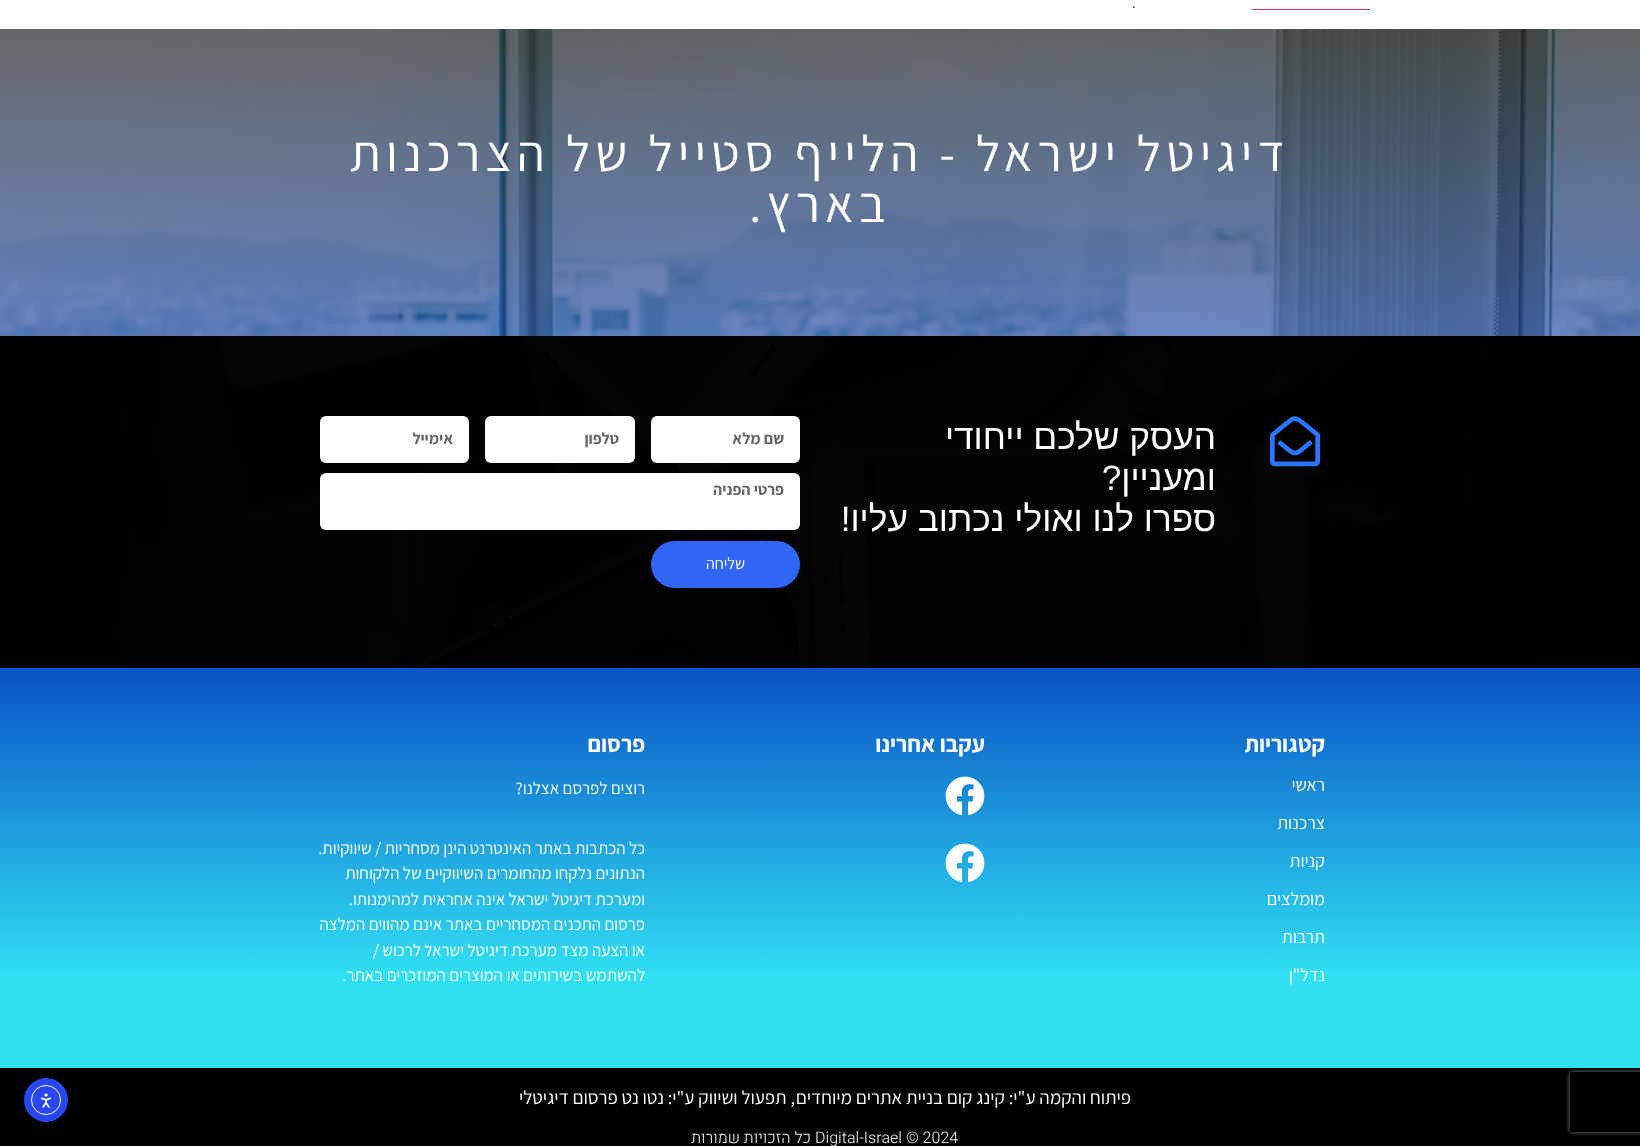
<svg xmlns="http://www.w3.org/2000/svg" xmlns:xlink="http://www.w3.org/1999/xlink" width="1640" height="1146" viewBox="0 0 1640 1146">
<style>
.cls-1{font:16px Roboto;direction:rtl;fill:#333333}
.cls-2{font:51px Assistant;letter-spacing:5.3px;direction:rtl;fill:#ffffff}
.cls-3{font:35.25px Liberation Sans;direction:rtl;fill:#ffffff}
.cls-4{font:bold 16px Assistant;direction:rtl;fill:#666666}
.cls-5{font:16px Assistant;direction:rtl;fill:#ffffff}
.cls-6{font:bold 23px Assistant;direction:rtl;fill:#ffffff}
.cls-7{font:18px Assistant;direction:rtl;fill:#ffffff}
.cls-8{font:17px Assistant;direction:rtl;fill:#ffffff}
.cls-9{font:19px Assistant;direction:rtl;fill:#ffffff}
.cls-10{font:300 16px Heebo;fill:#e3e3e3}
.cls-11{font:300 16px Heebo;direction:rtl;fill:#e3e3e3}
</style>
<defs>
<linearGradient id="g1" gradientUnits="userSpaceOnUse" x1="820" y1="668" x2="820" y2="1068"><stop offset="0" stop-color="#0953c6"/><stop offset="0.77" stop-color="#31dff3"/></linearGradient>
<clipPath id="clip1"><path d="M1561 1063H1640V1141H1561ZM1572 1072H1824C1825 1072 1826 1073 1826 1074V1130C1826 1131 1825 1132 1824 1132H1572C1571 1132 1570 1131 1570 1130V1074C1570 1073 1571 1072 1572 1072Z" clip-rule="evenodd"/></clipPath>
</defs>
<rect width="100%" height="100%" fill="#ffffff"/>
<rect fill="#cc3366" x="1252" y="9" width="118" height="1"/>
<image xlink:href="image0.png" x="0" y="29" width="1640" height="307"/>
<image xlink:href="image1.png" x="0" y="336" width="1640" height="332"/>
<image xlink:href="image2.png" x="1270" y="416" width="50" height="51"/>
<rect fill="#ffffff" x="651" y="416" width="149" height="47" rx="6"/>
<rect fill="#ffffff" x="485" y="416" width="150" height="47" rx="6"/>
<rect fill="#ffffff" x="320" y="416" width="149" height="47" rx="6"/>
<rect fill="#ffffff" x="320" y="473" width="480" height="57" rx="6"/>
<rect fill="#3165f3" x="651" y="541" width="149" height="47" rx="23.5"/>
<rect fill="url(#g1)" x="0" y="668" width="1640" height="400"/>
<rect fill="#000000" x="0" y="1068" width="1640" height="78"/>
<g clip-path="url(#clip1)">
<rect fill="#808080" filter="blur(2.5px)" x="1570" y="1072" width="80" height="60" rx="2"/>
</g>
<image xlink:href="image3.png" x="945" y="776" width="40" height="40"/>
<image xlink:href="image4.png" x="945" y="843" width="40" height="40"/>
<circle fill="#2847f3" cx="46" cy="1100" r="22"/>
<circle fill="none" stroke="#ffffff" cx="46" cy="1100" r="14.5"/>
<image xlink:href="image5.png" x="40" y="1093" width="12" height="15"/>
<text class="cls-1" x="1136" y="8">.</text>
<text class="cls-2" x="1290" y="171">דיגיטל ישראל - הלייף סטייל של הצרכנות</text>
<text class="cls-2" x="891" y="222">בארץ.</text>
<text class="cls-3"><tspan x="1216" y="449">העסק שלכם ייחודי</tspan><tspan x="1216" y="490">ומעניין?</tspan><tspan x="1216" y="531">ספרו לנו ואולי נכתוב עליו!</tspan></text>
<text class="cls-4" x="784" y="444">שם מלא</text>
<text class="cls-4" x="619" y="444">טלפון</text>
<text class="cls-4" x="453" y="444">אימייל</text>
<text class="cls-4" x="784" y="495">פרטי הפניה</text>
<text class="cls-5" x="745" y="569">שליחה</text>
<text class="cls-6" x="1325" y="752">קטגוריות</text>
<text class="cls-7" x="1325" y="791">ראשי</text>
<text class="cls-7" x="1325" y="829">צרכנות</text>
<text class="cls-7" x="1325" y="867">קניות</text>
<text class="cls-7" x="1325" y="905">מומלצים</text>
<text class="cls-7" x="1325" y="943">תרבות</text>
<text class="cls-7" x="1325" y="981">נדל"ן</text>
<text class="cls-6" x="985" y="752">עקבו אחרינו</text>
<text class="cls-6" x="645" y="752">פרסום</text>
<text class="cls-8" x="645" y="794">רוצים לפרסם אצלנו?</text>
<text class="cls-8"><tspan x="645" y="854">כל הכתבות באתר האינטרנט הינן מסחריות / שיווקיות.</tspan><tspan x="645" y="879">הנתונים נלקחו מהחומרים השיווקיים של הלקוחות</tspan><tspan x="645" y="905">ומערכת דיגיטל ישראל אינה אחראית למהימנותו.</tspan><tspan x="645" y="930">פרסום התכנים המסחריים באתר אינם מהווים המלצה</tspan><tspan x="645" y="956">או הצעה מצד מערכת דיגיטל ישראל לרכוש /</tspan><tspan x="645" y="981">להשתמש בשירותים או המוצרים המוזכרים באתר.</tspan></text>
<text class="cls-9" x="1131" y="1104">פיתוח והקמה ע"י:</text>
<text class="cls-9" x="1005" y="1104">קינג קום בניית אתרים מיוחדים</text>
<text class="cls-9" x="795" y="1104">, תפעול ושיווק ע"י:</text>
<text class="cls-9" x="664" y="1104">נטו נט פרסום דיגיטלי</text>
<text class="cls-10" x="815" y="1143">Digital-Israel © 2024</text>
<text class="cls-11" x="811" y="1143">כל הזכויות שמורות</text>
</svg>
